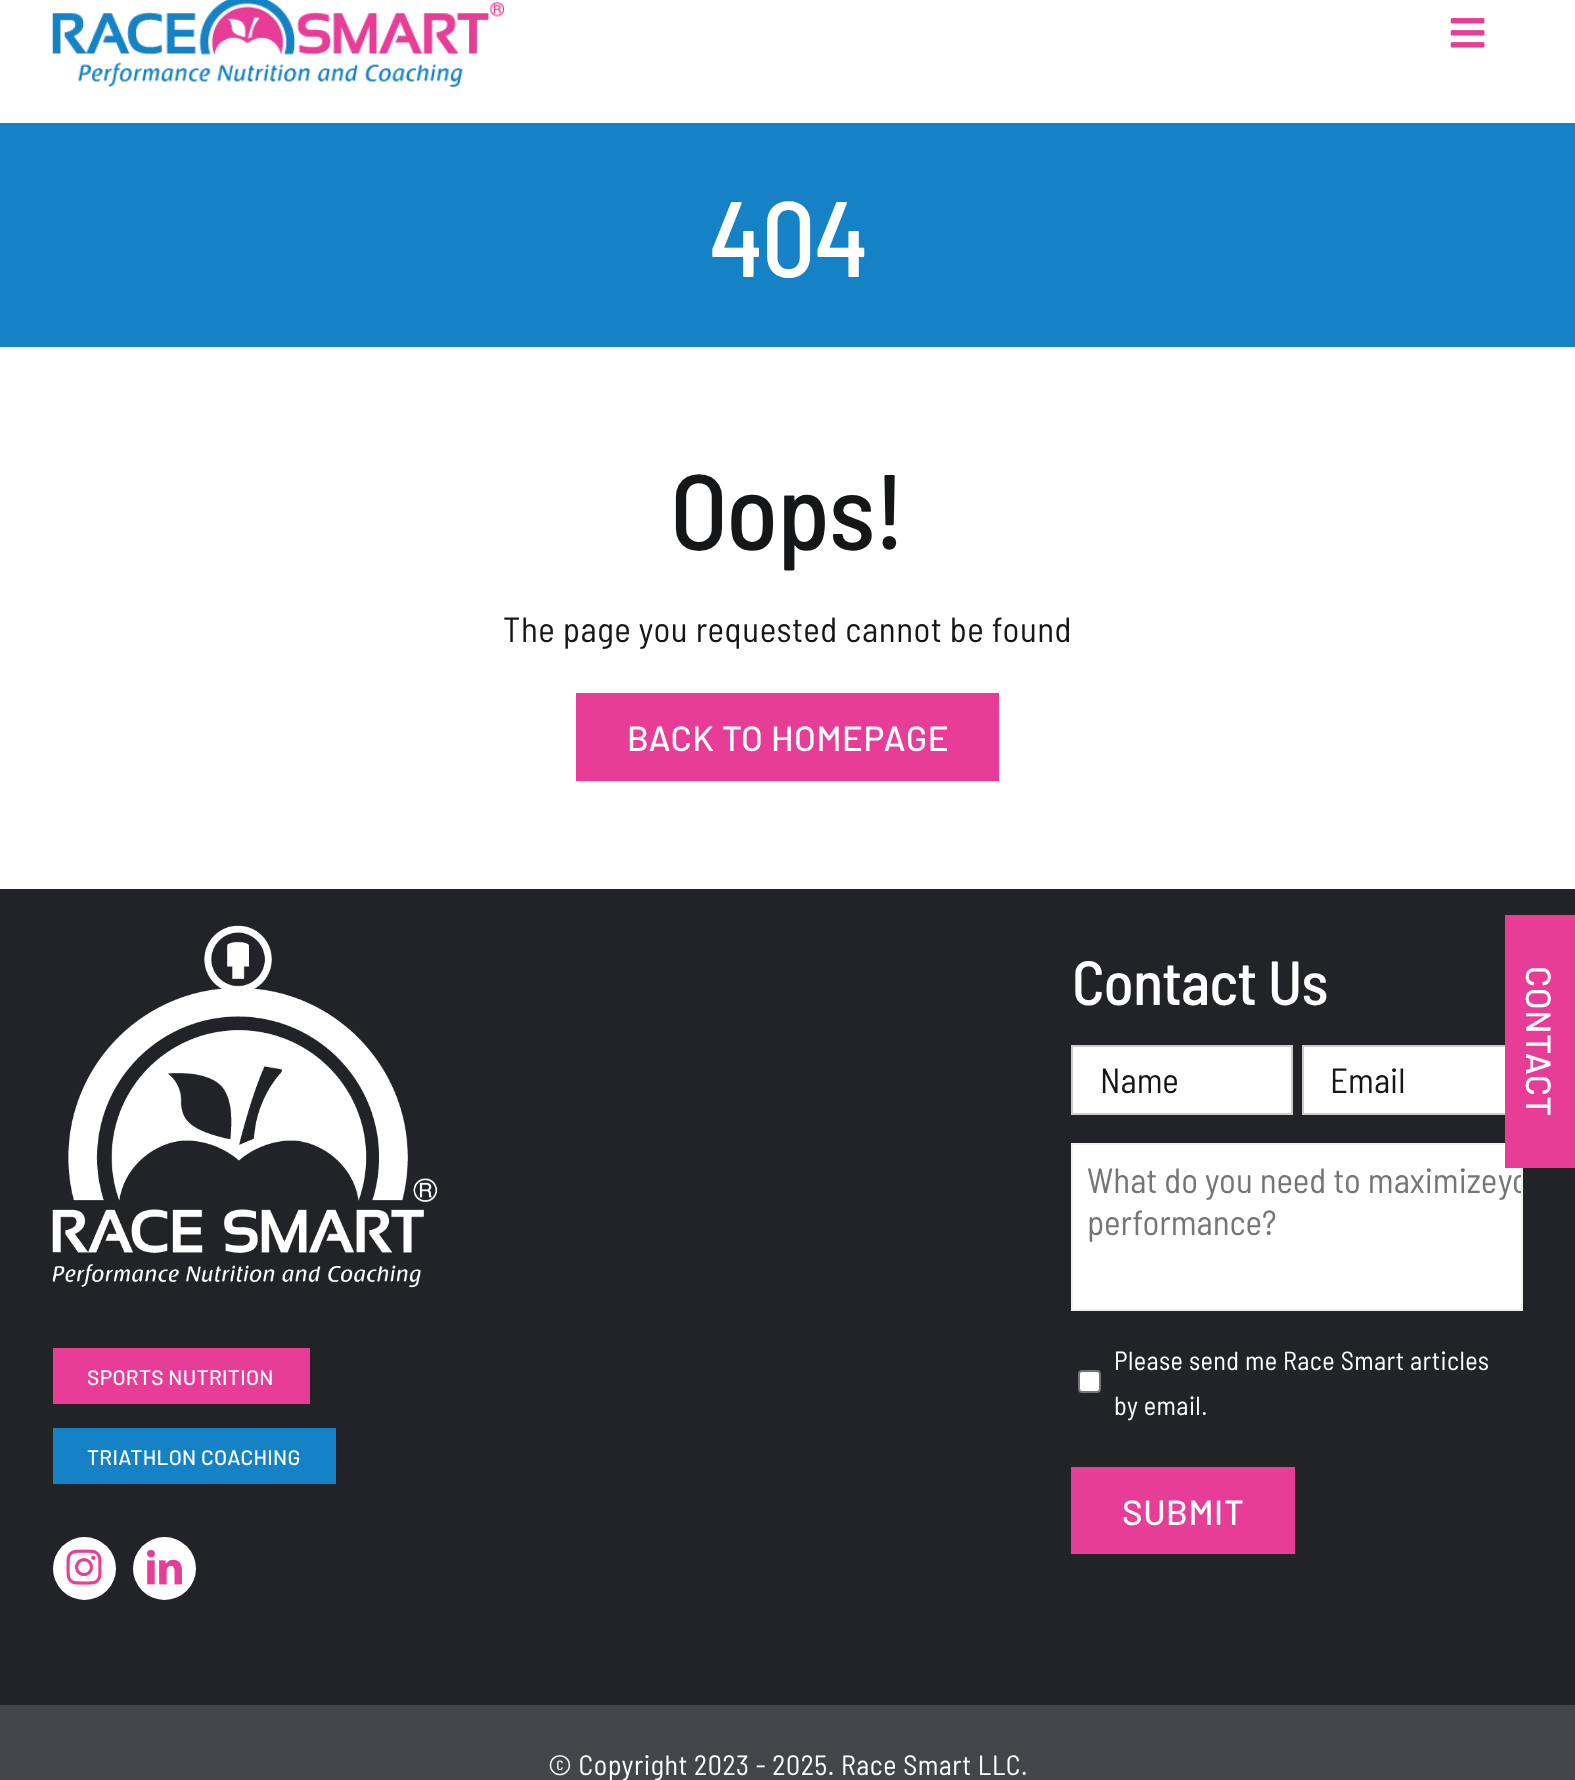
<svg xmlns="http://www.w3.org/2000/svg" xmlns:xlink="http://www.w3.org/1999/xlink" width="1575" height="1780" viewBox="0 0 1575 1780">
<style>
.cls-1{font:500 107px Barlow Semi Condensed;letter-spacing:-1.5px;fill:#ffffff}
.cls-2{font:500 107px Barlow Semi Condensed;letter-spacing:-1.5px;fill:#141617}
.cls-3{font:35px Barlow Semi Condensed;letter-spacing:0.55px;fill:#141617}
.cls-4{font:500 35px Barlow;letter-spacing:0.55px;fill:#ffffff}
.cls-5{font:500 21px Barlow;letter-spacing:0.3px;fill:#ffffff}
.cls-6{font:500 62px Barlow Semi Condensed;letter-spacing:-1px;fill:#ffffff}
.cls-7{font:35px Barlow Semi Condensed;fill:#141617}
.cls-8{font:35px Barlow Semi Condensed;fill:#757575}
.cls-9{font:26.25px Barlow Semi Condensed;letter-spacing:0.4px;fill:#ffffff}
.cls-10{font:28px Barlow Semi Condensed;letter-spacing:0.55px;fill:#ffffff}
</style>
<defs>
<clipPath id="clip1"><rect x="1073" y="1145" width="448" height="164"/></clipPath>
</defs>
<rect width="100%" height="100%" fill="#ffffff"/>
<image xlink:href="image0.png" x="52" y="0" width="452" height="87"/>
<image xlink:href="image1.png" x="1450" y="18" width="35" height="30"/>
<rect fill="#1682c6" x="0" y="123" width="1575" height="224"/>
<rect fill="#e73d97" x="576" y="693" width="423" height="88"/>
<rect fill="#212326" x="0" y="889" width="1575" height="816"/>
<image xlink:href="image2.png" x="52" y="925" width="386" height="363"/>
<rect fill="#e73d97" x="53" y="1348" width="257" height="56"/>
<rect fill="#1682c6" x="53" y="1428" width="283" height="56"/>
<circle fill="#ffffff" cx="84.5" cy="1568.5" r="31.5"/>
<image xlink:href="image3.png" x="66" y="1549" width="36" height="36"/>
<circle fill="#ffffff" cx="164.5" cy="1568.5" r="31.5"/>
<image xlink:href="image4.png" x="147" y="1549" width="35" height="36"/>
<rect fill="#ffffff" stroke="#cccccc" stroke-width="2" x="1072" y="1046" width="220" height="68"/>
<rect fill="#ffffff" x="1304" y="1047" width="201" height="66"/>
<rect fill="none" stroke="#cccccc" stroke-width="2" x="1303" y="1046" width="219" height="68"/>
<rect fill="#ffffff" stroke="#f1f1f1" stroke-width="2" x="1072" y="1144" width="450" height="166"/>
<rect fill="#ffffff" stroke="#767676" stroke-width="2" x="1079" y="1371" width="21" height="21" rx="3"/>
<rect fill="#e73d97" x="1071" y="1467" width="224" height="87"/>
<rect fill="#434549" x="0" y="1705" width="1575" height="75"/>
<rect fill="#e73d97" x="1505" y="915" width="70" height="253"/>
<text class="cls-1" x="709" y="277">404</text>
<text class="cls-2" x="670" y="550">Oops!</text>
<text class="cls-3" x="503" y="642">The page you requested cannot be found</text>
<text class="cls-4" x="627" y="751">BACK TO HOMEPAGE</text>
<text class="cls-5" x="87" y="1385">SPORTS NUTRITION</text>
<text class="cls-5" x="87" y="1465">TRIATHLON COACHING</text>
<text class="cls-6" x="1072" y="1005">Contact Us</text>
<text class="cls-7" x="1100" y="1093">Name</text>
<text class="cls-7" x="1330" y="1093">Email</text>
<text class="cls-8" x="1087" y="1193">What do you need to maximize</text>
<g clip-path="url(#clip1)">
<text class="cls-8" x="1498" y="1193">yo</text>
</g>
<text class="cls-8" x="1087" y="1235">performance?</text>
<text class="cls-9"><tspan x="1114" y="1370">Please send me Race Smart articles</tspan><tspan x="1114" y="1415">by email.</tspan></text>
<text class="cls-4" x="1122" y="1525">SUBMIT</text>
<text class="cls-10" x="548" y="1775">© Copyright 2023 - 2025. Race Smart LLC.</text>
<text class="cls-4" x="1526" y="966" transform="rotate(90 1526 966)">CONTACT</text>
</svg>
